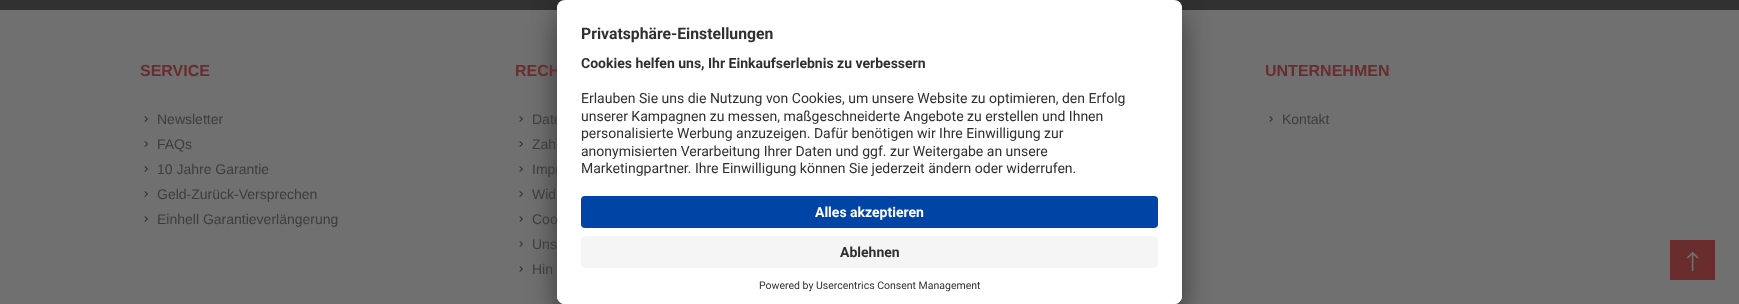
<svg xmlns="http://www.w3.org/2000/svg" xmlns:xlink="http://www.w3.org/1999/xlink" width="1739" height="304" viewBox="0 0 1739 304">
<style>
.cls-1{font:bold 16px Liberation Sans;fill:#682d2c}
.cls-2{font:14px Liberation Sans;fill:#3d3d3d}
.cls-3{font:bold 15.75px Roboto;fill:#303030}
.cls-4{font:14px Roboto;fill:#303030}
.cls-5{font:bold 14px Roboto;fill:#303030}
.cls-6{font:10.5px Roboto;fill:#303030}
.cls-7{font:bold 14px Roboto;fill:#ffffff}
</style>
<defs>
<clipPath id="clip1"><rect x="557" y="0" width="625" height="304" rx="8"/></clipPath>
<clipPath id="clip2"><path d="M565 0H1174C1178.5 0 1182 3.5 1182 8V184H557V8C557 3.5 560.5 0 565 0Z"/></clipPath>
</defs>
<rect width="100%" height="100%" fill="#707070"/>
<rect fill="#313131" x="0" y="0" width="1739" height="10"/>
<image xlink:href="image0.png" x="519" y="116" width="4" height="6"/>
<image xlink:href="image0.png" x="519" y="141" width="4" height="6"/>
<image xlink:href="image0.png" x="519" y="166" width="4" height="6"/>
<image xlink:href="image0.png" x="519" y="191" width="4" height="6"/>
<image xlink:href="image0.png" x="519" y="216" width="4" height="6"/>
<image xlink:href="image0.png" x="519" y="241" width="4" height="6"/>
<image xlink:href="image0.png" x="519" y="266" width="4" height="6"/>
<rect fill="#000000" fill-opacity="0.3" filter="blur(14px)" x="557" y="20" width="625" height="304" rx="8"/>
<rect fill="#000000" fill-opacity="0.22" filter="blur(13px)" x="557" y="5" width="625" height="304" rx="8"/>
<image xlink:href="image0.png" x="144" y="116" width="4" height="6"/>
<image xlink:href="image0.png" x="144" y="141" width="4" height="6"/>
<image xlink:href="image0.png" x="144" y="166" width="4" height="6"/>
<image xlink:href="image0.png" x="144" y="191" width="4" height="6"/>
<image xlink:href="image0.png" x="144" y="216" width="4" height="6"/>
<image xlink:href="image0.png" x="1269" y="116" width="4" height="6"/>
<rect fill="#682d2c" x="1670" y="240" width="45" height="40"/>
<image xlink:href="image1.png" x="1687" y="252" width="12" height="19"/>
<text class="cls-1" x="140" y="76">SERVICE</text>
<text class="cls-2"><tspan x="157" y="124">Newsletter</tspan><tspan x="157" y="149">FAQs</tspan><tspan x="157" y="174">10 Jahre Garantie</tspan><tspan x="157" y="199">Geld-Zurück-Versprechen</tspan><tspan x="157" y="224">Einhell Garantieverlängerung</tspan></text>
<text class="cls-1" x="515" y="76">RECH</text>
<text class="cls-2"><tspan x="532" y="124">Date</tspan><tspan x="532" y="149">Zah</tspan><tspan x="532" y="174">Impr</tspan></text>
<rect fill="#ffffff" x="557" y="0" width="625" height="304" rx="8"/>
<g clip-path="url(#clip1)">
<g clip-path="url(#clip2)">
<rect fill="#ffffff" x="557" y="1" width="625" height="183"/>
</g>
</g>
<text class="cls-3" x="581" y="39">Privatsphäre-Einstellungen</text>
<text class="cls-4" x="581" y="173">Marketingpartner. Ihre Einwilligung können Sie jederzeit ändern oder widerrufen.</text>
<text class="cls-4" x="581" y="156">anonymisierten Verarbeitung Ihrer Daten und ggf. zur Weitergabe an unsere</text>
<text class="cls-4" x="581" y="138">personalisierte Werbung anzuzeigen. Dafür benötigen wir Ihre Einwilligung zur</text>
<text class="cls-4" x="581" y="121">unserer Kampagnen zu messen, maßgeschneiderte Angebote zu erstellen und Ihnen</text>
<text class="cls-4" x="581" y="103">Erlauben Sie uns die Nutzung von Cookies, um unsere Website zu optimieren, den Erfolg</text>
<text class="cls-5" x="581" y="68">Cookies helfen uns, Ihr Einkaufserlebnis zu verbessern</text>
<path fill="#ffffff" d="M557 184H1182V296C1182 300.5 1178.5 304 1174 304H565C560.5 304 557 300.5 557 296Z"/>
<text class="cls-6" x="759" y="289">Powered by Usercentrics Consent Management</text>
<rect fill="#f5f5f5" x="581" y="236" width="577" height="32" rx="4"/>
<text class="cls-5" x="840" y="257">Ablehnen</text>
<rect fill="#0045a5" x="581" y="196" width="577" height="32" rx="4"/>
<text class="cls-7" x="815" y="217">Alles akzeptieren</text>
<text class="cls-2"><tspan x="532" y="199">Wid</tspan><tspan x="532" y="224">Coo</tspan><tspan x="532" y="249">Uns</tspan><tspan x="532" y="274">Hin</tspan></text>
<text class="cls-1" x="1265" y="76">UNTERNEHMEN</text>
<text class="cls-2" x="1282" y="124">Kontakt</text>
</svg>
